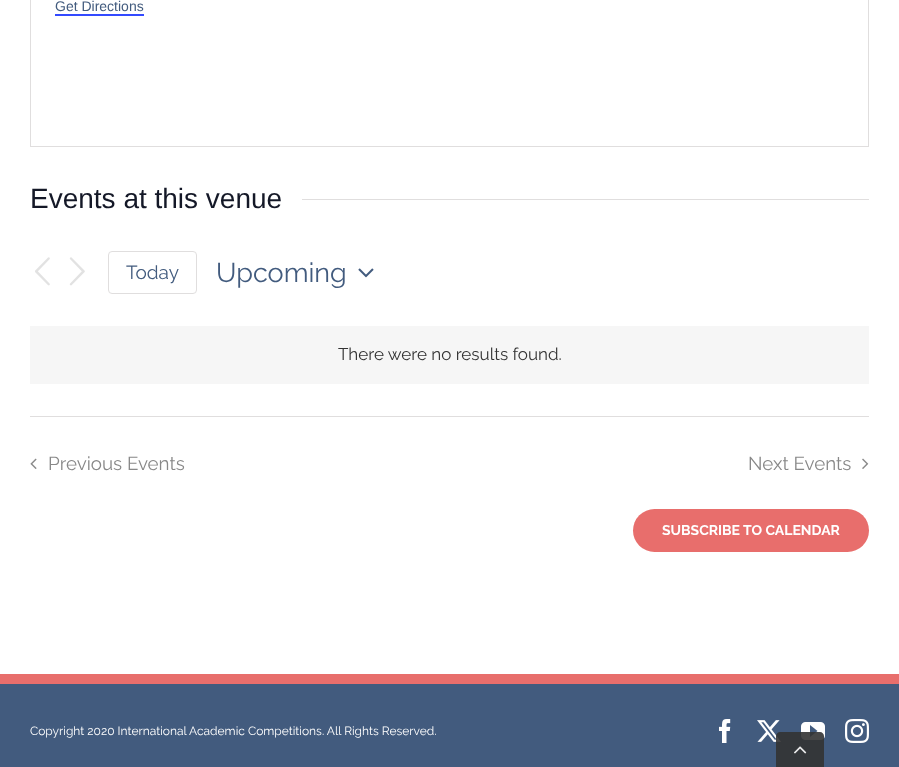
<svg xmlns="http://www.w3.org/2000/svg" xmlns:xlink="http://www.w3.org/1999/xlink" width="899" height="767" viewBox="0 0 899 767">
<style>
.cls-1{font:14px Liberation Sans;fill:#425b7e}
.cls-2{font:28px Liberation Sans;fill:#141827}
.cls-3{font:19px Raleway;fill:#425b7e}
.cls-4{font:27px Raleway;fill:#425b7e}
.cls-5{font:17px Raleway;fill:#333333}
.cls-6{font:18.75px Raleway;fill:#888888}
.cls-7{font:bold 14px Raleway;fill:#ffffff}
.cls-8{font:12px Raleway;fill:#ffffff}
</style>
<rect width="100%" height="100%" fill="#ffffff"/>
<rect fill="none" stroke="#e0dede" x="30.5" y="-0.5" width="838" height="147"/>
<rect fill="#334aff" x="55" y="14" width="89" height="2"/>
<rect fill="#e0dede" x="302" y="199" width="567" height="1"/>
<image xlink:href="image0.png" x="35" y="257" width="15" height="29"/>
<image xlink:href="image1.png" x="69" y="257" width="16" height="29"/>
<rect fill="none" stroke="#e0dede" x="108.5" y="251.5" width="88" height="42" rx="3.5"/>
<image xlink:href="image2.png" x="358" y="268" width="16" height="10"/>
<rect fill="#f6f6f6" x="30" y="326" width="839" height="58"/>
<rect fill="#e0dede" x="30" y="416" width="839" height="1"/>
<image xlink:href="image3.png" x="30" y="458" width="7" height="11"/>
<image xlink:href="image4.png" x="862" y="458" width="7" height="11"/>
<rect fill="#e86e6c" x="633" y="509" width="236" height="43" rx="21.5"/>
<rect fill="#425b7e" x="0" y="684" width="899" height="83"/>
<rect fill="#e86e6c" x="0" y="674" width="899" height="10"/>
<image xlink:href="image5.png" x="719" y="719" width="12" height="24"/>
<image xlink:href="image6.png" x="757" y="720" width="24" height="22"/>
<image xlink:href="image7.png" x="801" y="722" width="24" height="18"/>
<image xlink:href="image8.png" x="845" y="719" width="24" height="24"/>
<path fill="#333333" fill-opacity="0.9" d="M780 732H820C822 732 824 734 824 736V767H776V736C776 734 778 732 780 732Z"/>
<image xlink:href="image9.png" x="794" y="746" width="13" height="8"/>
<text class="cls-1" x="55" y="11">Get Directions</text>
<text class="cls-2" x="30" y="208">Events at this venue</text>
<text class="cls-3" x="126" y="279">Today</text>
<text class="cls-4" x="216" y="282">Upcoming</text>
<text class="cls-5" x="338" y="360">There were no results found.</text>
<text class="cls-6" x="48" y="470">Previous Events</text>
<text class="cls-6" x="748" y="470">Next Events</text>
<text class="cls-7" x="662" y="535">SUBSCRIBE TO CALENDAR</text>
<text class="cls-8" x="30" y="735">Copyright 2020 International Academic Competitions. All Rights Reserved.</text>
</svg>
